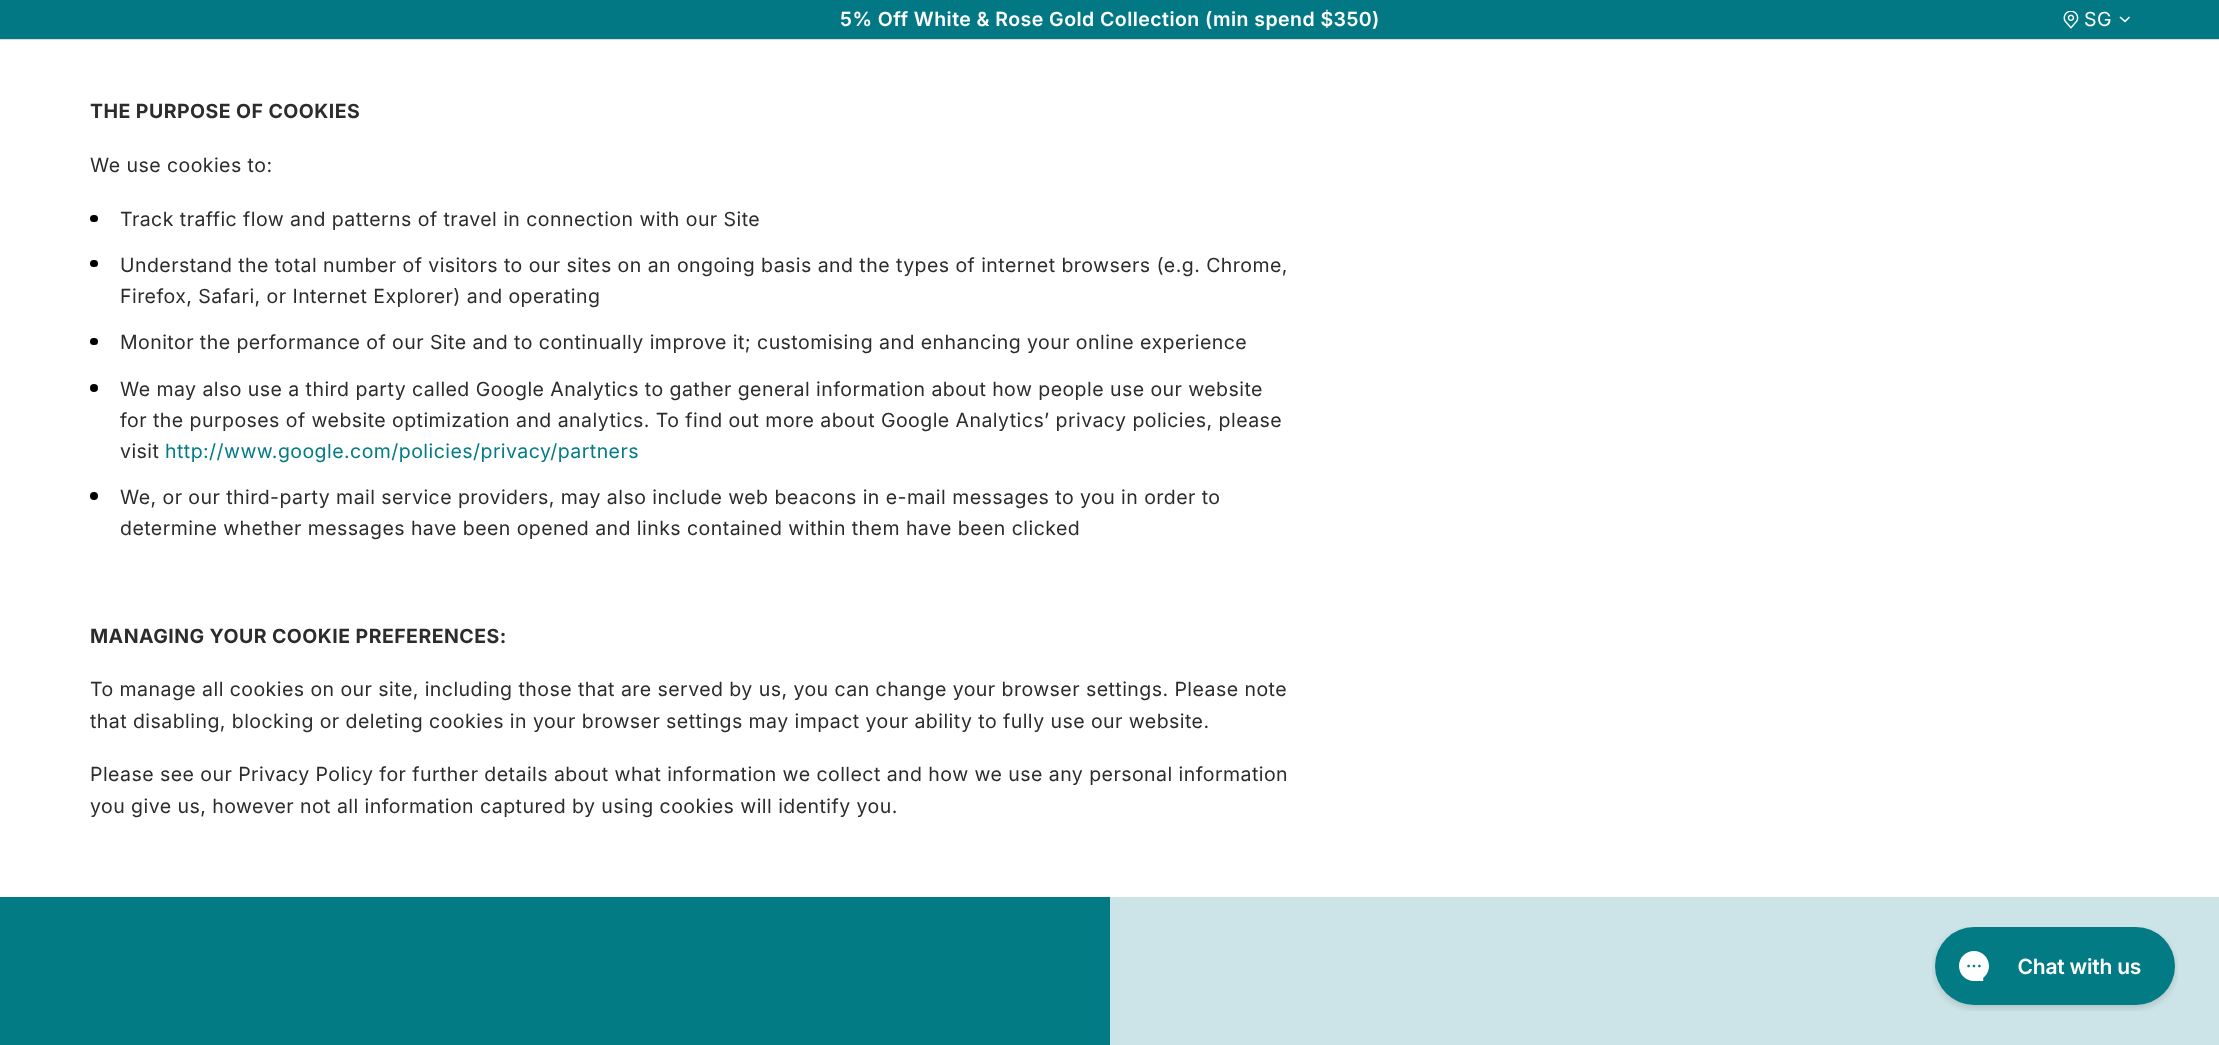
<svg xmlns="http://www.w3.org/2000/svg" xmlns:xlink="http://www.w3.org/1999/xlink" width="2219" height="1045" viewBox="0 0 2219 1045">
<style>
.cls-1{font:600 19.5px Inter;letter-spacing:0.45px;fill:#ffffff}
.cls-2{font:19.5px Inter;letter-spacing:0.45px;fill:#ffffff}
.cls-3{font:bold 19.5px Inter;letter-spacing:0.45px;fill:#2c2c2c}
.cls-4{font:19.5px Inter;letter-spacing:0.45px;fill:#2c2c2c}
.cls-5{font:19.5px Inter;letter-spacing:0.45px;fill:#037b85}
</style>
<rect width="100%" height="100%" fill="#ffffff"/>
<rect fill="#037885" x="0" y="0" width="2219" height="39"/>
<image xlink:href="image0.png" x="2063" y="11" width="16" height="18"/>
<path fill="none" stroke="#ffffff" stroke-width="1.6" d="M2120 17L2125 21.5L2129.5 17"/>
<rect fill="#dbdbdb" x="0" y="39" width="2219" height="1"/>
<rect fill="#000000" x="90" y="215" width="8" height="7" rx="3.5"/>
<rect fill="#000000" x="90" y="260" width="8" height="7" rx="3.5"/>
<rect fill="#000000" x="90" y="338" width="8" height="7" rx="3.5"/>
<circle fill="#000000" cx="94" cy="388" r="4"/>
<circle fill="#000000" cx="94" cy="496" r="4"/>
<rect fill="#037b85" x="0" y="897" width="1110" height="148"/>
<rect fill="#cce4e7" x="1110" y="897" width="1109" height="148"/>
<image xlink:href="image1.png" x="1932" y="927" width="246" height="84"/>
<text class="cls-1" x="840" y="26">5% Off White &amp; Rose Gold Collection (min spend $350)</text>
<text class="cls-2" x="2084" y="26">SG</text>
<text class="cls-3" x="90" y="118">THE PURPOSE OF COOKIES</text>
<text class="cls-4" x="90" y="172">We use cookies to:</text>
<text class="cls-4" x="120" y="226">Track traffic flow and patterns of travel in connection with our Site</text>
<text class="cls-4"><tspan x="120" y="272">Understand the total number of visitors to our sites on an ongoing basis and the types of internet browsers (e.g. Chrome,</tspan><tspan x="120" y="303">Firefox, Safari, or Internet Explorer) and operating</tspan></text>
<text class="cls-4" x="120" y="349">Monitor the performance of our Site and to continually improve it; customising and enhancing your online experience</text>
<text class="cls-4"><tspan x="120" y="396">We may also use a third party called Google Analytics to gather general information about how people use our website</tspan><tspan x="120" y="427">for the purposes of website optimization and analytics. To find out more about Google Analytics’ privacy policies, please</tspan><tspan x="120" y="458">visit</tspan></text>
<text class="cls-5" x="165" y="458">http://www.google.com/policies/privacy/partners</text>
<text class="cls-4"><tspan x="120" y="504">We, or our third-party mail service providers, may also include web beacons in e-mail messages to you in order to</tspan><tspan x="120" y="535">determine whether messages have been opened and links contained within them have been clicked</tspan></text>
<text class="cls-3" x="90" y="643">MANAGING YOUR COOKIE PREFERENCES:</text>
<text class="cls-4"><tspan x="90" y="696">To manage all cookies on our site, including those that are served by us, you can change your browser settings. Please note</tspan><tspan x="90" y="728">that disabling, blocking or deleting cookies in your browser settings may impact your ability to fully use our website.</tspan></text>
<text class="cls-4"><tspan x="90" y="781">Please see our Privacy Policy for further details about what information we collect and how we use any personal information</tspan><tspan x="90" y="813">you give us, however not all information captured by using cookies will identify you.</tspan></text>
</svg>
